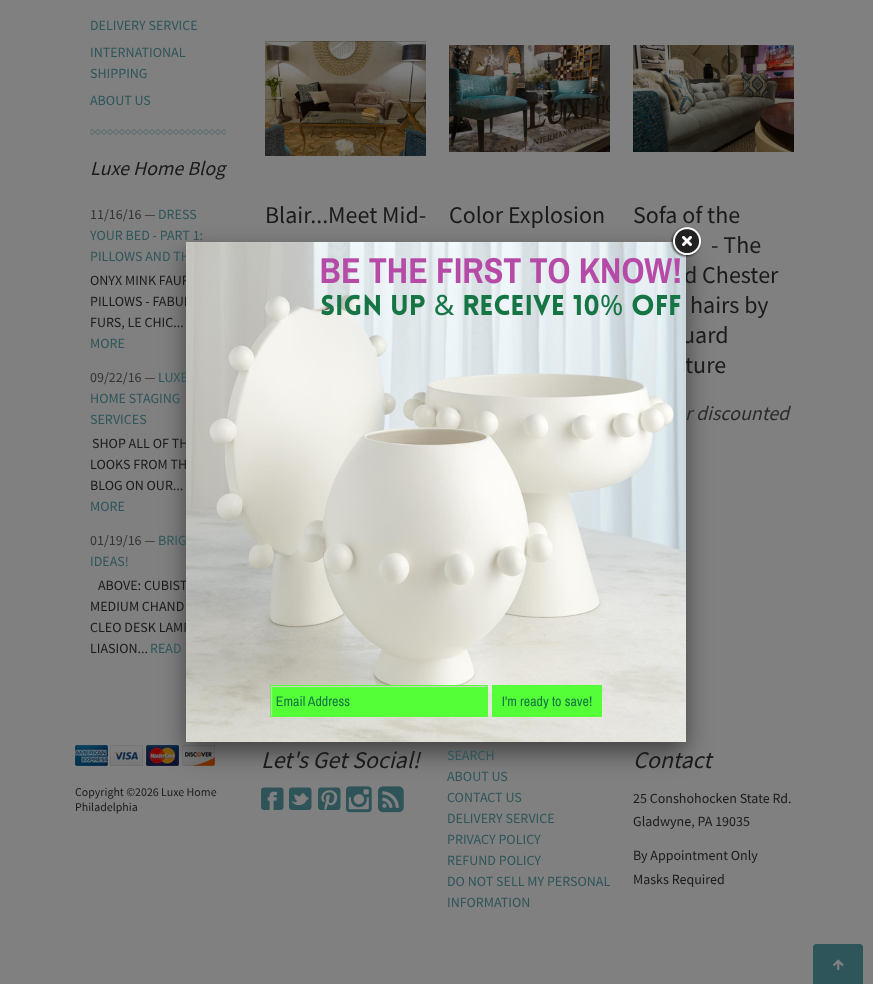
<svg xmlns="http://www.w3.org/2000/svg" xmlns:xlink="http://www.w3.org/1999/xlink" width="873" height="984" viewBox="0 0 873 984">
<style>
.cls-1{font:14px Source Sans Pro;fill:#2e555a}
.cls-2{font:italic 20px Source Sans Pro;fill:#1a1a1a}
.cls-3{font:14px Source Sans Pro;fill:#333333}
.cls-4{font:14px Source Sans Pro;fill:#1a1a1a}
.cls-5{font:24px Source Sans Pro;fill:#1a1a1a}
.cls-6{font:italic 20px Source Sans Pro;fill:#2b2b2b}
.cls-7{font:11.9px Source Sans Pro;fill:#1a1a1a}
.cls-8{font:italic 24px Source Sans Pro;fill:#1a1a1a}
</style>
<rect width="100%" height="100%" fill="#808080"/>
<rect fill="#2e555a" x="90" y="129" width="136" height="6"/>
<image xlink:href="image0.png" x="90" y="129" width="136" height="6"/>
<image xlink:href="image1.png" x="265" y="41" width="161" height="115"/>
<image xlink:href="image2.png" x="449" y="45" width="161" height="107"/>
<image xlink:href="image3.png" x="633" y="45" width="161" height="107"/>
<image xlink:href="image8.png" x="146" y="745" width="33" height="21"/>
<image xlink:href="image9.png" x="182" y="745" width="33" height="21"/>
<image xlink:href="image10.png" x="261" y="787" width="23" height="23"/>
<image xlink:href="image11.png" x="289" y="787" width="23" height="23"/>
<image xlink:href="image12.png" x="318" y="787" width="23" height="23"/>
<image xlink:href="image13.png" x="346" y="786" width="26" height="27"/>
<image xlink:href="image14.png" x="378" y="786" width="26" height="27"/>
<rect fill="#000000" fill-opacity="0.5" filter="blur(12.5px)" x="186" y="252" width="500" height="500"/>
<image xlink:href="image6.png" x="75" y="745" width="33" height="21"/>
<image xlink:href="image7.png" x="110" y="745" width="33" height="21"/>
<path fill="#2e555a" d="M816 944H860C861.5 944 863 945.5 863 947V984H813V947C813 945.5 814.5 944 816 944Z"/>
<image xlink:href="image15.png" x="833" y="959" width="11" height="11"/>
<text class="cls-1"><tspan x="90" y="30">DELIVERY SERVICE</tspan><tspan x="90" y="57">INTERNATIONAL</tspan><tspan x="90" y="78">SHIPPING</tspan><tspan x="90" y="105">ABOUT US</tspan></text>
<text class="cls-2" x="90" y="175">Luxe Home Blog</text>
<text class="cls-3" x="90" y="219">11/16/16 —</text>
<text class="cls-1" x="158" y="219">DRESS</text>
<text class="cls-1"><tspan x="90" y="240">YOUR BED - PART 1:</tspan><tspan x="90" y="261">PILLOWS AND TH</tspan></text>
<text class="cls-4"><tspan x="90" y="285">ONYX MINK FAUR</tspan><tspan x="90" y="306">PILLOWS - FABUL</tspan><tspan x="90" y="327">FURS, LE CHIC...</tspan></text>
<text class="cls-1" x="90" y="348">MORE</text>
<text class="cls-3" x="90" y="382">09/22/16 —</text>
<text class="cls-1" x="158" y="382">LUXE</text>
<text class="cls-1"><tspan x="90" y="403">HOME STAGING</tspan><tspan x="90" y="424">SERVICES</tspan></text>
<text class="cls-4" x="92" y="448">SHOP ALL OF TH</text>
<text class="cls-4"><tspan x="90" y="469">LOOKS FROM TH</tspan><tspan x="90" y="490">BLOG ON OUR...</tspan></text>
<text class="cls-1" x="90" y="511">MORE</text>
<text class="cls-3" x="90" y="545">01/19/16 —</text>
<text class="cls-1" x="158" y="545">BRIG</text>
<text class="cls-1" x="90" y="566">IDEAS!</text>
<text class="cls-4" x="98" y="590">ABOVE: CUBIST</text>
<text class="cls-4"><tspan x="90" y="611">MEDIUM CHAND</tspan><tspan x="90" y="632">CLEO DESK LAMP</tspan><tspan x="90" y="653">LIASION...</tspan></text>
<text class="cls-1" x="150" y="653">READ</text>
<text class="cls-5" x="265" y="223">Blair...Meet Mid-</text>
<text class="cls-5" x="449" y="223">Color Explosion</text>
<text class="cls-5" x="633" y="223">Sofa of the</text>
<text class="cls-5" x="711" y="253">- The</text>
<text class="cls-5" x="684" y="283">d Chester</text>
<text class="cls-5" x="690" y="313">hairs by</text>
<text class="cls-5" x="682" y="343">uard</text>
<text class="cls-5" x="685" y="373">ture</text>
<text class="cls-6" x="685" y="420">r discounted</text>
<image xlink:href="image5.png" x="186" y="242" width="500" height="500"/>
<image xlink:href="image4.png" x="670" y="226" width="32" height="32"/>
<text class="cls-7"><tspan x="75" y="796">Copyright ©2026 Luxe Home</tspan><tspan x="75" y="811">Philadelphia</tspan></text>
<text class="cls-8" x="261" y="768">Let's Get Social!</text>
<text class="cls-1"><tspan x="447" y="760">SEARCH</tspan><tspan x="447" y="781">ABOUT US</tspan><tspan x="447" y="802">CONTACT US</tspan><tspan x="447" y="823">DELIVERY SERVICE</tspan><tspan x="447" y="844">PRIVACY POLICY</tspan><tspan x="447" y="865">REFUND POLICY</tspan><tspan x="447" y="886">DO NOT SELL MY PERSONAL</tspan><tspan x="447" y="907">INFORMATION</tspan></text>
<text class="cls-8" x="633" y="768">Contact</text>
<text class="cls-4"><tspan x="633" y="803">25 Conshohocken State Rd.</tspan><tspan x="633" y="826">Gladwyne, PA 19035</tspan></text>
<text class="cls-4"><tspan x="633" y="860">By Appointment Only</tspan><tspan x="633" y="884">Masks Required</tspan></text>
</svg>
